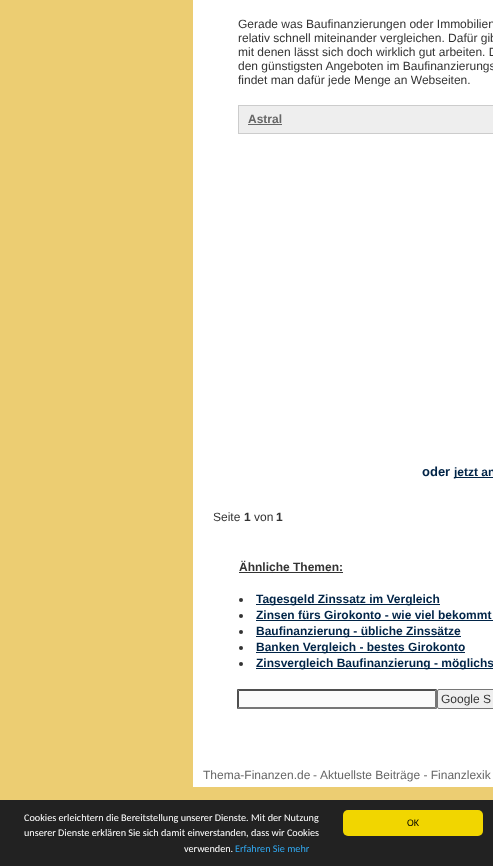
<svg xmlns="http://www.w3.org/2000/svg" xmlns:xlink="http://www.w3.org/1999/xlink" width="493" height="866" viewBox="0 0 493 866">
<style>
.cls-1{font:12px Liberation Sans;fill:#333333}
.cls-2{font:bold 12px Liberation Sans;fill:#666666}
.cls-3{font:bold 13px Liberation Sans;fill:#012447}
.cls-4{font:bold 12px Liberation Sans;fill:#012447}
.cls-5{font:bold 12px Liberation Sans;fill:#333333}
.cls-6{font:12px Liberation Sans;fill:#666666}
.cls-7{font:10.2px Carlito;fill:#ffffff}
.cls-8{font:10.2px Carlito;fill:#31a8f0}
.cls-9{font:10.2px Carlito;fill:#000000}
</style>
<rect width="100%" height="100%" fill="#eccd72"/>
<rect fill="#ffffff" x="193" y="0" width="300" height="787"/>
<rect fill="#eeeeee" stroke="#cccccc" x="238.5" y="105.5" width="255" height="28"/>
<rect fill="#666666" x="248" y="124" width="34" height="1"/>
<rect fill="#012447" x="454" y="477" width="39" height="1"/>
<rect fill="#333333" x="239" y="572" width="104" height="1"/>
<circle fill="#333333" cx="241" cy="600" r="2"/>
<rect fill="#012447" x="256" y="604" width="184" height="1"/>
<circle fill="#333333" cx="241" cy="616" r="2"/>
<rect fill="#012447" x="256" y="620" width="237" height="1"/>
<circle fill="#333333" cx="241" cy="632" r="2"/>
<rect fill="#012447" x="256" y="636" width="205" height="1"/>
<circle fill="#333333" cx="241" cy="648" r="2"/>
<rect fill="#012447" x="256" y="652" width="209" height="1"/>
<circle fill="#333333" cx="241" cy="664" r="2"/>
<rect fill="#012447" x="256" y="668" width="237" height="1"/>
<rect fill="#fbfbfb" x="237" y="689" width="200" height="20"/>
<path fill="#4f4f4f" d="M237 689H437L435 691H239Z"/>
<path fill="#767676" d="M437 689V709L435 707V691Z"/>
<path fill="#767676" d="M437 709H237L239 707H435Z"/>
<path fill="#4f4f4f" d="M237 709V689L239 691V707Z"/>
<rect fill="#efefef" stroke="#767676" x="437.5" y="689.5" width="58" height="19" rx="1.5"/>
<rect fill="#222222" x="0" y="800" width="493" height="66"/>
<rect fill="#f1d600" x="343" y="810" width="140" height="26" rx="5"/>
<text class="cls-1"><tspan x="238" y="28">Gerade was Baufinanzierungen oder Immobilien</tspan><tspan x="238" y="42">relativ schnell miteinander vergleichen. Dafür gib</tspan><tspan x="238" y="56">mit denen lässt sich doch wirklich gut arbeiten. D</tspan><tspan x="238" y="70">den günstigsten Angeboten im Baufinanzierungs</tspan><tspan x="238" y="84">findet man dafür jede Menge an Webseiten.</tspan></text>
<text class="cls-2" x="248" y="123">Astral</text>
<text class="cls-3" x="422" y="476">oder</text>
<text class="cls-4" x="454" y="476">jetzt an</text>
<text class="cls-1" x="213" y="521">Seite</text>
<text class="cls-5" x="244" y="521">1</text>
<text class="cls-1" x="254" y="521">von</text>
<text class="cls-5" x="276" y="521">1</text>
<text class="cls-5" x="239" y="571">Ähnliche Themen:</text>
<text class="cls-4"><tspan x="256" y="603">Tagesgeld Zinssatz im Vergleich</tspan><tspan x="256" y="619">Zinsen fürs Girokonto - wie viel bekommt</tspan><tspan x="256" y="635">Baufinanzierung - übliche Zinssätze</tspan><tspan x="256" y="651">Banken Vergleich - bestes Girokonto</tspan><tspan x="256" y="667">Zinsvergleich Baufinanzierung - möglichs</tspan></text>
<text class="cls-1" x="441" y="703">Google S</text>
<text class="cls-6" x="203" y="779">Thema-Finanzen.de</text>
<text class="cls-6" x="313" y="779">-</text>
<text class="cls-6" x="320" y="779">Aktuellste Beiträge - Finanzlexik</text>
<text class="cls-7"><tspan x="24" y="821">Cookies erleichtern die Bereitstellung unserer Dienste. Mit der Nutzung</tspan><tspan x="24" y="836">unserer Dienste erklären Sie sich damit einverstanden, dass wir Cookies</tspan></text>
<text class="cls-7" x="184" y="852">verwenden.</text>
<text class="cls-8" x="235" y="852">Erfahren Sie mehr</text>
<text class="cls-9" x="407" y="826">OK</text>
</svg>
